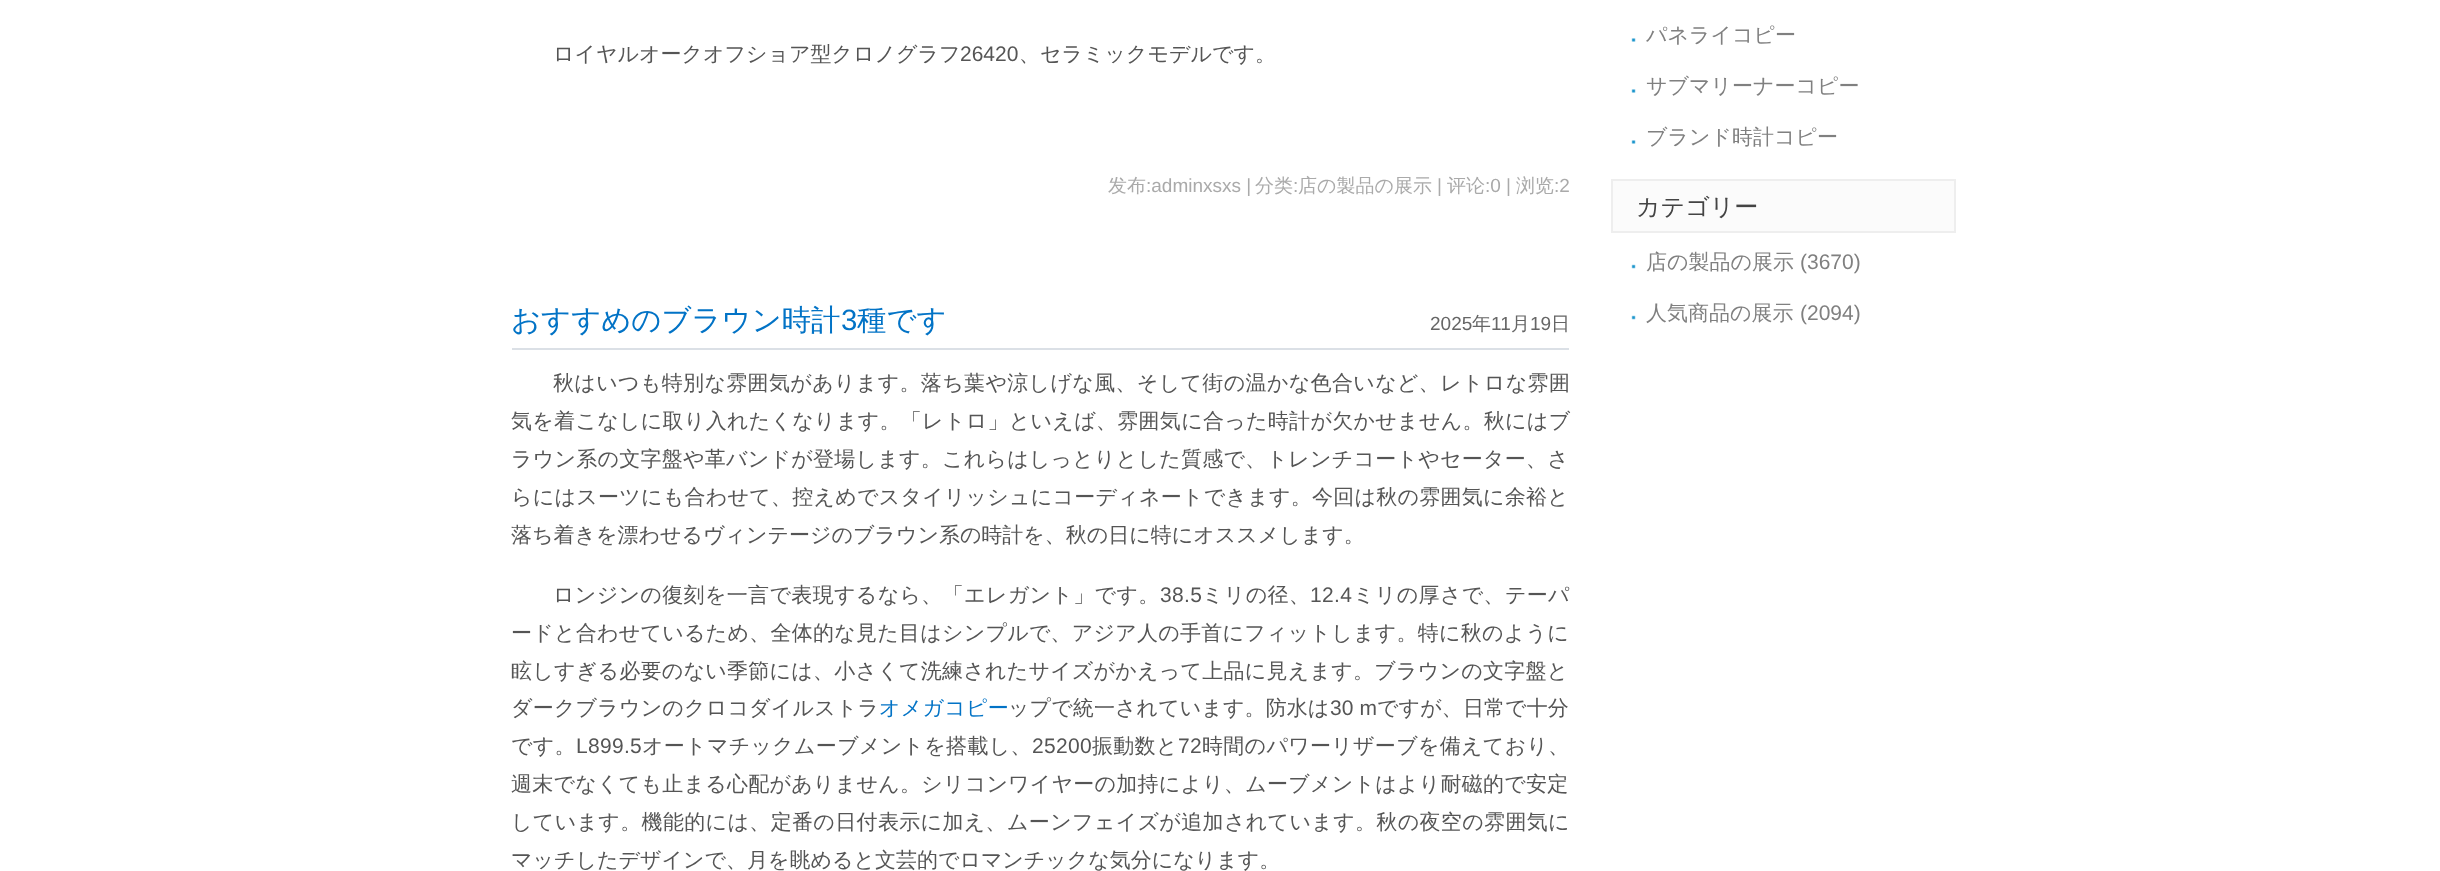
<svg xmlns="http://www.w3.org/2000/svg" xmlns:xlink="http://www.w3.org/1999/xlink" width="2440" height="871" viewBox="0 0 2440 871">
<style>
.cls-1{font:500 21px WenQuanYi Zen Hei;fill:#555555}
.cls-2{font:21px Liberation Sans;fill:#555555}
.cls-3{font:500 19px WenQuanYi Zen Hei;fill:#aaaaaa}
.cls-4{font:19px Liberation Sans;fill:#aaaaaa}
.cls-5{font:500 29.4px WenQuanYi Zen Hei;fill:#0273c6}
.cls-6{font:29.4px Liberation Sans;fill:#0273c6}
.cls-7{font:19px Liberation Sans;fill:#666666}
.cls-8{font:500 19px WenQuanYi Zen Hei;fill:#666666}
.cls-9{font:500 21px WenQuanYi Zen Hei;letter-spacing:0.35px;fill:#555555}
.cls-10{font:500 21px WenQuanYi Zen Hei;letter-spacing:0.3px;fill:#555555}
.cls-11{font:500 21px WenQuanYi Zen Hei;letter-spacing:0.25px;fill:#555555}
.cls-12{font:21px Liberation Sans;letter-spacing:0.35px;fill:#555555}
.cls-13{font:500 21px WenQuanYi Zen Hei;letter-spacing:0.2px;fill:#555555}
.cls-14{font:500 21px WenQuanYi Zen Hei;letter-spacing:0.25px;fill:#0273c6}
.cls-15{font:500 21px WenQuanYi Zen Hei;letter-spacing:0.1px;fill:#555555}
.cls-16{font:21px Liberation Sans;letter-spacing:0.1px;fill:#555555}
.cls-17{font:21px Liberation Sans;letter-spacing:0.3px;fill:#555555}
.cls-18{font:500 21px WenQuanYi Zen Hei;fill:#808080}
.cls-19{font:500 24px WenQuanYi Zen Hei;fill:#444444}
.cls-20{font:21px Liberation Sans;fill:#808080}
</style>
<rect width="100%" height="100%" fill="#ffffff"/>
<rect fill="#dbe0e6" x="512" y="348" width="1057" height="2"/>
<image xlink:href="image0.png" x="1631" y="38" width="5" height="4"/>
<image xlink:href="image0.png" x="1631" y="89" width="5" height="4"/>
<image xlink:href="image0.png" x="1631" y="140" width="5" height="4"/>
<rect fill="#fbfbfb" stroke="#eeeeee" stroke-width="2" x="1612" y="180" width="343" height="52"/>
<image xlink:href="image1.png" x="1631" y="264" width="5" height="5"/>
<image xlink:href="image1.png" x="1631" y="315" width="5" height="5"/>
<text class="cls-1" x="553" y="61">ロイヤルオークオフショア型クロノグラフ</text>
<text class="cls-2" x="960" y="61">26420</text>
<text class="cls-1" x="1019" y="61">、セラミックモデルです。</text>
<text class="cls-3" x="1108" y="192">发布</text>
<text class="cls-4" x="1146" y="192">:adminxsxs |</text>
<text class="cls-3" x="1255" y="192">分类</text>
<text class="cls-4" x="1293" y="192">:</text>
<text class="cls-3" x="1298" y="192">店の製品の展示</text>
<text class="cls-4" x="1437" y="192">|</text>
<text class="cls-3" x="1447" y="192">评论</text>
<text class="cls-4" x="1485" y="192">:0 |</text>
<text class="cls-3" x="1516" y="192">浏览</text>
<text class="cls-4" x="1554" y="192">:2</text>
<text class="cls-5" x="511" y="330">おすすめのブラウン時計</text>
<text class="cls-6" x="841" y="330">3</text>
<text class="cls-5" x="857" y="330">種です</text>
<text class="cls-7" x="1430" y="330">2025</text>
<text class="cls-8" x="1472" y="330">年</text>
<text class="cls-7" x="1491" y="330">11</text>
<text class="cls-8" x="1511" y="330">月</text>
<text class="cls-7" x="1530" y="330">19</text>
<text class="cls-8" x="1551" y="330">日</text>
<text class="cls-9" x="553" y="390">秋はいつも特別な雰囲気があります。落ち葉や涼しげな風、そして街の温かな色合いなど、レトロな雰囲</text>
<text class="cls-10" x="511" y="428">気を着こなしに取り入れたくなります。「レトロ」といえば、雰囲気に合った時計が欠かせません。秋にはブ</text>
<text class="cls-11"><tspan x="511" y="466">ラウン系の文字盤や革バンドが登場します。これらはしっとりとした質感で、トレンチコートやセーター、さ</tspan><tspan x="511" y="504">らにはスーツにも合わせて、控えめでスタイリッシュにコーディネートできます。今回は秋の雰囲気に余裕と</tspan></text>
<text class="cls-1" x="511" y="542">落ち着きを漂わせるヴィンテージのブラウン系の時計を、秋の日に特にオススメします。</text>
<text class="cls-9" x="553" y="602">ロンジンの復刻を一言で表現するなら、「エレガント」です。</text>
<text class="cls-12" x="1160" y="602">38.5</text>
<text class="cls-9" x="1202" y="602">ミリの径、</text>
<text class="cls-12" x="1310" y="602">12.4</text>
<text class="cls-9" x="1353" y="602">ミリの厚さで、テーパ</text>
<text class="cls-11"><tspan x="511" y="640">ードと合わせているため、全体的な見た目はシンプルで、アジア人の手首にフィットします。特に秋のように</tspan><tspan x="511" y="678">眩しすぎる必要のない季節には、小さくて洗練されたサイズがかえって上品に見えます。ブラウンの文字盤と</tspan></text>
<text class="cls-13" x="511" y="715">ダークブラウンのクロコダイルストラ</text>
<text class="cls-14" x="879" y="715">オメガコピー</text>
<text class="cls-15" x="1008" y="715">ップで統一されています。防水は</text>
<text class="cls-16" x="1330" y="715">30 m</text>
<text class="cls-15" x="1377" y="715">ですが、日常で十分</text>
<text class="cls-10" x="511" y="753">です。</text>
<text class="cls-17" x="576" y="753">L899.5</text>
<text class="cls-10" x="642" y="753">オートマチックムーブメントを搭載し、</text>
<text class="cls-17" x="1032" y="753">25200</text>
<text class="cls-10" x="1092" y="753">振動数と</text>
<text class="cls-17" x="1178" y="753">72</text>
<text class="cls-10" x="1202" y="753">時間のパワーリザーブを備えており、</text>
<text class="cls-11" x="511" y="791">週末でなくても止まる心配がありません。シリコンワイヤーの加持により、ムーブメントはより耐磁的で安定</text>
<text class="cls-9" x="511" y="829">しています。機能的には、定番の日付表示に加え、ムーンフェイズが追加されています。秋の夜空の雰囲気に</text>
<text class="cls-1" x="511" y="867">マッチしたデザインで、月を眺めると文芸的でロマンチックな気分になります。</text>
<text class="cls-18" x="1646" y="42">パネライコピー</text>
<text class="cls-18" x="1646" y="93">サブマリーナーコピー</text>
<text class="cls-18" x="1646" y="144">ブランド時計コピー</text>
<text class="cls-19" x="1636" y="215">カテゴリー</text>
<text class="cls-18" x="1646" y="269">店の製品の展示</text>
<text class="cls-20" x="1800" y="269">(3670)</text>
<text class="cls-18" x="1646" y="320">人気商品の展示</text>
<text class="cls-20" x="1800" y="320">(2094)</text>
</svg>
